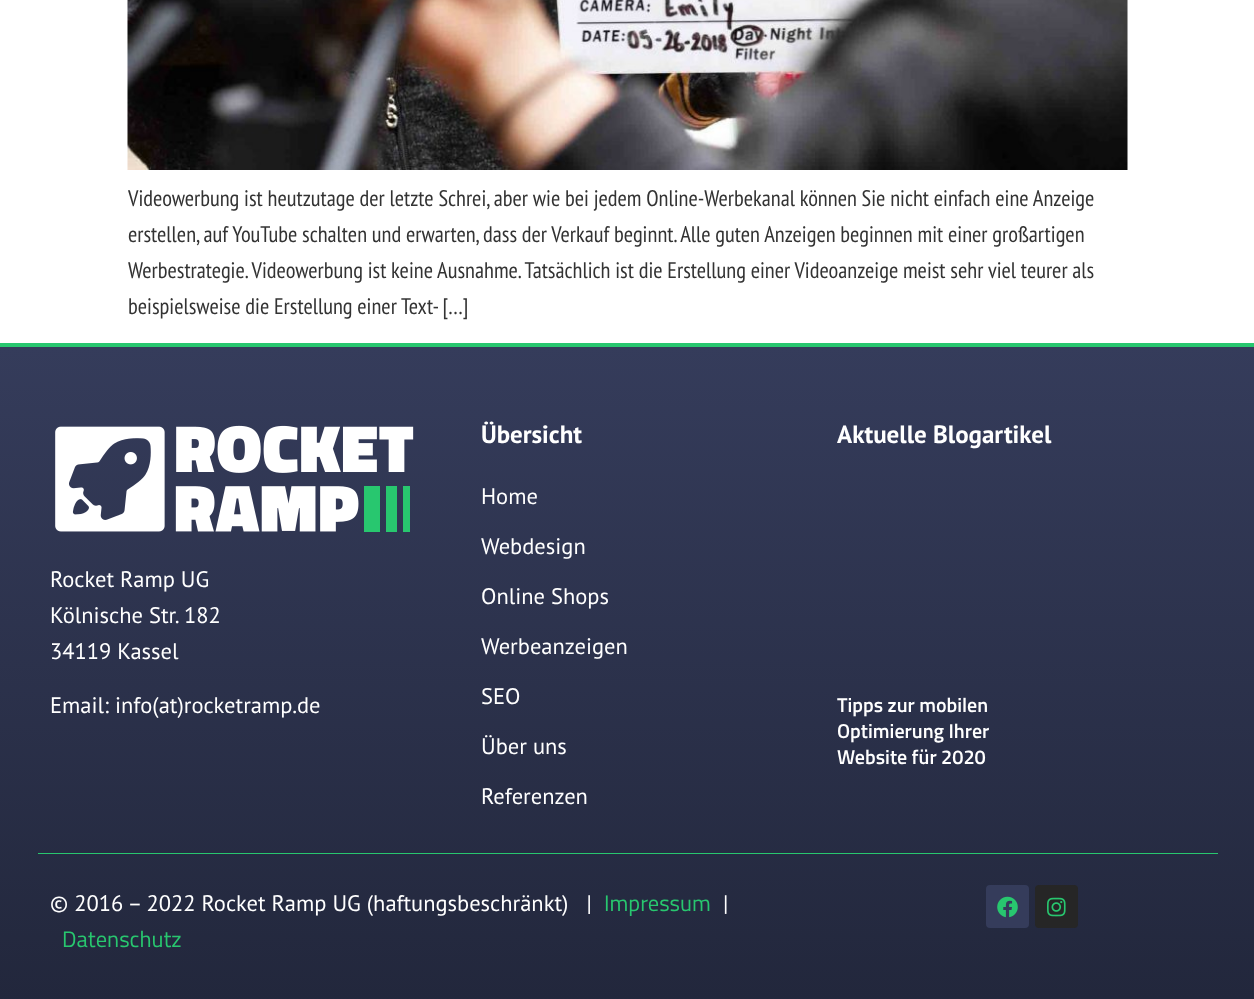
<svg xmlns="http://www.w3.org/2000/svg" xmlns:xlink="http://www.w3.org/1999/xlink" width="1254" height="999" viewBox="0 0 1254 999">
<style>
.cls-1{font:22.5px PT Sans Narrow;fill:#333333}
.cls-2{font:22.5px PT Sans;fill:#ffffff}
.cls-3{font:bold 25px PT Sans;fill:#ffffff}
.cls-4{font:600 20px Titillium Web;fill:#ffffff}
.cls-5{font:22.5px Titillium Web;fill:#28c76f}
</style>
<defs>
<linearGradient id="g1" gradientUnits="userSpaceOnUse" x1="627" y1="346" x2="628" y2="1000"><stop offset="0" stop-color="#353c5b"/><stop offset="1" stop-color="#22273c"/></linearGradient>
</defs>
<rect width="100%" height="100%" fill="#ffffff"/>
<image xlink:href="image0.png" x="127" y="0" width="1001" height="170"/>
<rect fill="url(#g1)" x="0" y="347" width="1254" height="652"/>
<rect fill="#28c76f" x="0" y="343" width="1254" height="4"/>
<image xlink:href="image1.png" x="55" y="425" width="359" height="107"/>
<rect fill="#28c76f" x="38" y="853" width="1180" height="1"/>
<rect fill="#353c5b" x="986" y="885" width="43" height="43" rx="4"/>
<image xlink:href="image2.png" x="997" y="896" width="21" height="22"/>
<rect fill="#262626" x="1035" y="885" width="43" height="43" rx="4"/>
<image xlink:href="image3.png" x="1047" y="897" width="19" height="20"/>
<text class="cls-1"><tspan x="128" y="206">Videowerbung ist heutzutage der letzte Schrei, aber wie bei jedem Online-Werbekanal können Sie nicht einfach eine Anzeige</tspan><tspan x="128" y="242">erstellen, auf YouTube schalten und erwarten, dass der Verkauf beginnt. Alle guten Anzeigen beginnen mit einer großartigen</tspan><tspan x="128" y="278">Werbestrategie. Videowerbung ist keine Ausnahme. Tatsächlich ist die Erstellung einer Videoanzeige meist sehr viel teurer als</tspan><tspan x="128" y="314">beispielsweise die Erstellung einer Text- […]</tspan></text>
<text class="cls-2"><tspan x="50" y="587">Rocket Ramp UG</tspan><tspan x="50" y="623">Kölnische Str. 182</tspan><tspan x="50" y="659">34119 Kassel</tspan></text>
<text class="cls-2" x="50" y="713">Email: info(at)rocketramp.de</text>
<text class="cls-3" x="481" y="443">Übersicht</text>
<text class="cls-2" x="481" y="504">Home</text>
<text class="cls-2" x="481" y="554">Webdesign</text>
<text class="cls-2" x="481" y="604">Online Shops</text>
<text class="cls-2" x="481" y="654">Werbeanzeigen</text>
<text class="cls-2" x="481" y="704">SEO</text>
<text class="cls-2" x="481" y="754">Über uns</text>
<text class="cls-2" x="481" y="804">Referenzen</text>
<text class="cls-3" x="837" y="443">Aktuelle Blogartikel</text>
<text class="cls-4"><tspan x="837" y="712">Tipps zur mobilen</tspan><tspan x="837" y="738">Optimierung Ihrer</tspan><tspan x="837" y="764">Website für 2020</tspan></text>
<text class="cls-2" xml:space="preserve" x="50" y="911">© 2016 – 2022 Rocket Ramp UG (haftungsbeschränkt)   |</text>
<text class="cls-5" x="604" y="911">Impressum</text>
<text class="cls-2" x="723" y="911">|</text>
<text class="cls-5" x="62" y="947">Datenschutz</text>
</svg>
